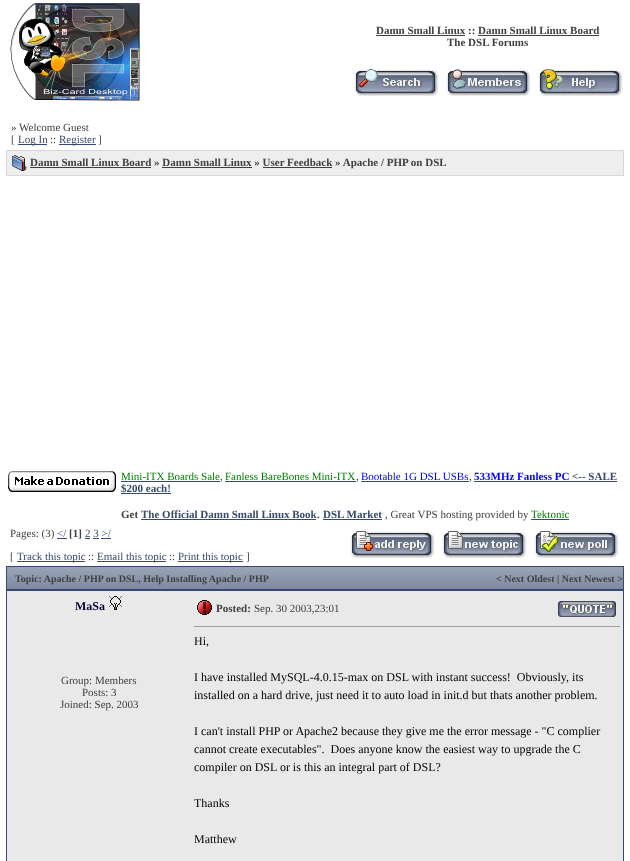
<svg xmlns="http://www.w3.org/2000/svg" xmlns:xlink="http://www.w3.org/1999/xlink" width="630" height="861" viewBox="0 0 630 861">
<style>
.cls-1{font:bold 11px Liberation Serif;fill:#404040}
.cls-2{font:11px Liberation Serif;fill:#404040}
.cls-3{font:11px Liberation Serif;fill:#37496d}
.cls-4{font:11px Liberation Serif;fill:#008000}
.cls-5{font:11px Liberation Serif;fill:#0000ff}
.cls-6{font:bold 11px Liberation Serif;fill:#0000ff}
.cls-7{font:bold 11px Liberation Serif;fill:#37496d}
.cls-8{font:bold 10px Liberation Serif;fill:#404040}
.cls-9{font:bold 12px Liberation Serif;fill:#000033}
.cls-10{font:12px Liberation Serif;fill:#000000}
</style>
<rect width="100%" height="100%" fill="#ffffff"/>
<image xlink:href="image0.png" x="10" y="2" width="131" height="99"/>
<rect fill="#404040" x="376" y="35" width="89" height="1"/>
<rect fill="#404040" x="478" y="35" width="121" height="1"/>
<image xlink:href="image1.png" x="354" y="68" width="85" height="28"/>
<image xlink:href="image2.png" x="446" y="69" width="85" height="27"/>
<image xlink:href="image3.png" x="538" y="68" width="85" height="28"/>
<rect fill="#37496d" x="18" y="144" width="29" height="1"/>
<rect fill="#37496d" x="59" y="144" width="37" height="1"/>
<rect fill="#d7d7d7" x="6" y="150" width="618" height="26"/>
<rect fill="#eeeeee" x="7" y="151" width="616" height="24"/>
<image xlink:href="image4.png" x="12" y="155" width="15" height="16"/>
<rect fill="#404040" x="30" y="167" width="121" height="1"/>
<rect fill="#404040" x="162" y="167" width="90" height="1"/>
<rect fill="#404040" x="263" y="167" width="69" height="1"/>
<image xlink:href="image5.png" x="8" y="471" width="108" height="21"/>
<rect fill="#37496d" x="121" y="481" width="99" height="1"/>
<rect fill="#37496d" x="225" y="481" width="131" height="1"/>
<rect fill="#37496d" x="361" y="481" width="108" height="1"/>
<rect fill="#37496d" x="474" y="481" width="143" height="1"/>
<rect fill="#37496d" x="121" y="493" width="50" height="1"/>
<rect fill="#37496d" x="141" y="519" width="175" height="1"/>
<rect fill="#37496d" x="323" y="519" width="59" height="1"/>
<rect fill="#37496d" x="531" y="519" width="38" height="1"/>
<rect fill="#37496d" x="57" y="538" width="10" height="1"/>
<rect fill="#37496d" x="85" y="538" width="5" height="1"/>
<rect fill="#37496d" x="93" y="538" width="6" height="1"/>
<rect fill="#37496d" x="101" y="538" width="10" height="1"/>
<rect fill="#37496d" x="17" y="561" width="68" height="1"/>
<rect fill="#37496d" x="97" y="561" width="69" height="1"/>
<rect fill="#37496d" x="178" y="561" width="65" height="1"/>
<image xlink:href="image6.png" x="350" y="531" width="85" height="27"/>
<image xlink:href="image7.png" x="442" y="531" width="85" height="27"/>
<image xlink:href="image8.png" x="534" y="531" width="85" height="27"/>
<rect fill="#37496d" x="6" y="566" width="618" height="295"/>
<image xlink:href="image9.png" x="7" y="567" width="406" height="22"/>
<image xlink:href="image10.png" x="413" y="567" width="210" height="22"/>
<rect fill="#e9e9e9" x="7" y="591" width="616" height="270"/>
<image xlink:href="image11.png" x="109" y="596" width="13" height="14"/>
<image xlink:href="image12.png" x="197" y="600" width="15" height="15"/>
<image xlink:href="image13.png" x="558" y="601" width="58" height="16"/>
<rect fill="#9f9f9f" x="194" y="626" width="427" height="1"/>
<rect fill="#eeeeee" x="620" y="626" width="1" height="1"/>
<text class="cls-1" x="376" y="34">Damn Small Linux :: Damn Small Linux Board</text>
<text class="cls-1" x="447" y="46">The DSL Forums</text>
<text class="cls-2"><tspan x="11" y="131">» Welcome Guest</tspan><tspan x="11" y="143">[</tspan></text>
<text class="cls-3" x="18" y="143">Log In</text>
<text class="cls-2" x="50" y="143">::</text>
<text class="cls-3" x="59" y="143">Register</text>
<text class="cls-2" x="98" y="143">]</text>
<text class="cls-1" x="30" y="166">Damn Small Linux Board » Damn Small Linux » User Feedback » Apache / PHP on DSL</text>
<text class="cls-4" x="121" y="480">Mini-ITX Boards Sale</text>
<text class="cls-2" x="220" y="480">,</text>
<text class="cls-4" x="225" y="480">Fanless BareBones Mini-ITX</text>
<text class="cls-2" x="356" y="480">,</text>
<text class="cls-5" x="361" y="480">Bootable 1G DSL USBs</text>
<text class="cls-2" x="469" y="480">,</text>
<text class="cls-6" x="474" y="480">533MHz Fanless PC</text>
<text class="cls-7" x="572" y="480">&lt;-- SALE</text>
<text class="cls-7" x="121" y="492">$200 each!</text>
<text class="cls-1" x="121" y="518">Get</text>
<text class="cls-7" x="141" y="518">The Official Damn Small Linux Book</text>
<text class="cls-1" x="317" y="518">.</text>
<text class="cls-7" x="323" y="518">DSL Market</text>
<text class="cls-2" x="385" y="518">, Great VPS hosting provided by</text>
<text class="cls-4" x="531" y="518">Tektonic</text>
<text class="cls-2" x="10" y="537">Pages: (3)</text>
<text class="cls-3" x="57" y="537">&lt;/</text>
<text class="cls-1" x="69" y="537">[1]</text>
<text class="cls-3" x="85" y="537">2 3 &gt;/</text>
<text class="cls-2" x="10" y="560">[</text>
<text class="cls-3" x="17" y="560">Track this topic</text>
<text class="cls-2" x="88" y="560">::</text>
<text class="cls-3" x="97" y="560">Email this topic</text>
<text class="cls-2" x="169" y="560">::</text>
<text class="cls-3" x="178" y="560">Print this topic</text>
<text class="cls-2" x="246" y="560">]</text>
<text class="cls-8" x="15" y="582">Topic: Apache / PHP on DSL, Help Installing Apache / PHP</text>
<text class="cls-8" x="496" y="582">&lt; Next Oldest | Next Newest &gt;</text>
<text class="cls-9" x="75" y="610">MaSa</text>
<text class="cls-2" x="61" y="684">Group: Members</text>
<text class="cls-2" x="82" y="696">Posts: 3</text>
<text class="cls-2" x="60" y="708">Joined: Sep. 2003</text>
<text class="cls-1" x="216" y="612">Posted:</text>
<text class="cls-2" x="254" y="612">Sep. 30 2003,23:01</text>
<text class="cls-10" x="194" y="645">Hi,</text>
<text class="cls-10" xml:space="preserve"><tspan x="194" y="681">I have installed MySQL-4.0.15-max on DSL with instant success!  Obviously, its</tspan><tspan x="194" y="699">installed on a hard drive, just need it to auto load in init.d but thats another problem.</tspan></text>
<text class="cls-10" xml:space="preserve"><tspan x="194" y="735">I can't install PHP or Apache2 because they give me the error message - "C complier</tspan><tspan x="194" y="753">cannot create executables".  Does anyone know the easiest way to upgrade the C</tspan><tspan x="194" y="771">compiler on DSL or is this an integral part of DSL?</tspan></text>
<text class="cls-10" x="194" y="807">Thanks</text>
<text class="cls-10" x="194" y="843">Matthew</text>
</svg>
